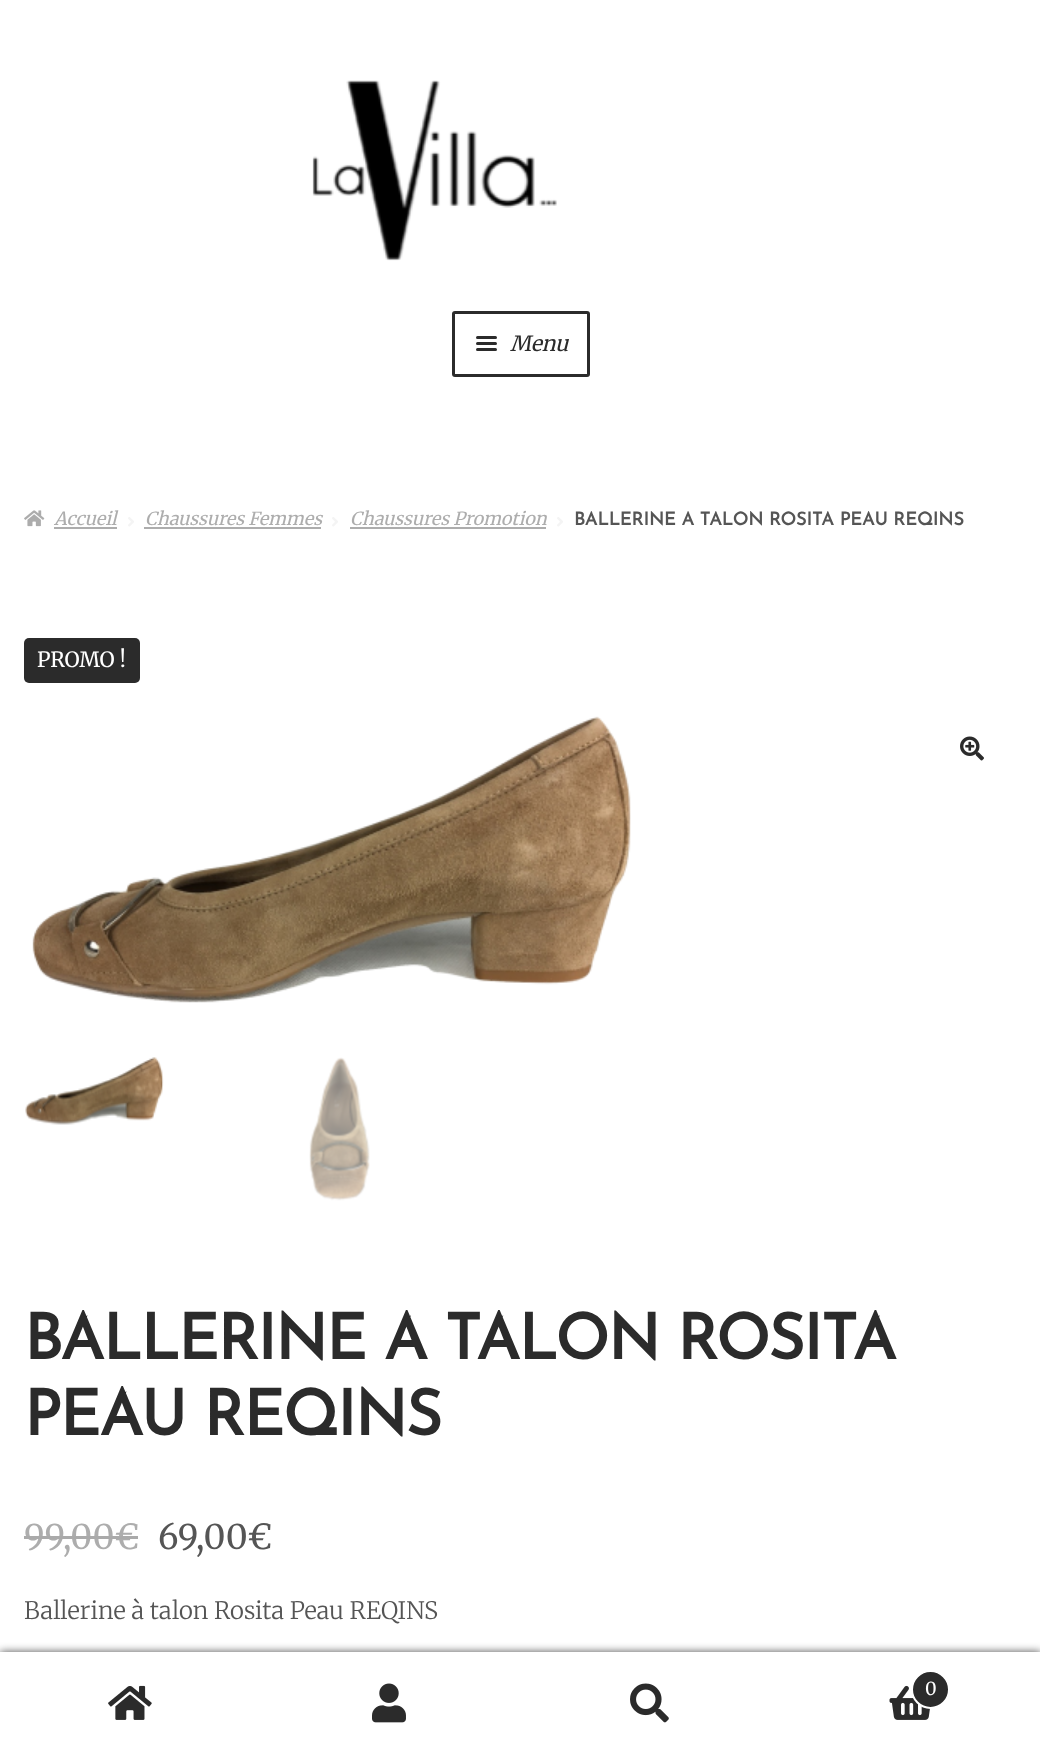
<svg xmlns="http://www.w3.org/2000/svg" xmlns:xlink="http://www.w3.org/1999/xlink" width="1040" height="1755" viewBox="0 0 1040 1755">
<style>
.cls-1{font:italic 21px Merriweather;fill:#2b2b2b}
.cls-2{font:italic 18px Merriweather;fill:#adadad}
.cls-3{font:bold 18px Josefin Sans;fill:#555555}
.cls-4{font:21px Merriweather;fill:#ffffff}
.cls-5{font:bold 62.8px Josefin Sans;letter-spacing:-1.5px;fill:#2b2b2b}
.cls-6{font:34px Merriweather;fill:#adadad}
.cls-7{font:34px Merriweather;fill:#555555}
.cls-8{font:300 24px Merriweather;fill:#555555}
.cls-9{font:18px Merriweather;fill:#ffffff}
</style>
<rect width="100%" height="100%" fill="#ffffff"/>
<image xlink:href="image0.png" x="312" y="80" width="245" height="181"/>
<rect fill="none" stroke="#2b2b2b" stroke-width="3" x="453.5" y="312.5" width="135" height="63" rx="1.5"/>
<rect fill="#2b2b2b" x="476" y="336" width="21" height="3" rx="1.5"/>
<rect fill="#2b2b2b" x="476" y="342" width="21" height="3" rx="1.5"/>
<rect fill="#2b2b2b" x="476" y="348" width="21" height="3" rx="1.5"/>
<image xlink:href="image1.png" x="24" y="510" width="21" height="17"/>
<rect fill="#adadad" x="54" y="527" width="63" height="2"/>
<image xlink:href="image2.png" x="128" y="517" width="6" height="10"/>
<rect fill="#adadad" x="144" y="527" width="177" height="2"/>
<image xlink:href="image2.png" x="332" y="517" width="6" height="10"/>
<rect fill="#adadad" x="350" y="527" width="196" height="2"/>
<image xlink:href="image2.png" x="557" y="517" width="6" height="10"/>
<rect fill="#2b2b2b" x="24" y="638" width="116" height="45" rx="5"/>
<image xlink:href="image3.png" x="32" y="716" width="599" height="287"/>
<image xlink:href="image4.png" x="960" y="736" width="24" height="25"/>
<image xlink:href="image5.png" x="25" y="1057" width="139" height="68"/>
<image xlink:href="image6.png" x="309" y="1057" width="61" height="144"/>
<rect fill="#000000" fill-opacity="0.7" filter="blur(4.5px)" x="0" y="1652" width="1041" height="103"/>
<rect fill="#ffffff" x="0" y="1652" width="1040" height="103"/>
<image xlink:href="image7.png" x="108" y="1685" width="44" height="35"/>
<image xlink:href="image8.png" x="372" y="1683" width="34" height="40"/>
<image xlink:href="image9.png" x="630" y="1683" width="39" height="40"/>
<image xlink:href="image10.png" x="889" y="1685" width="41" height="35"/>
<circle fill="#2b2b2b" stroke="#ffffff" stroke-width="2" cx="930.5" cy="1689.5" r="18.5"/>
<text class="cls-1" x="510" y="351">Menu</text>
<text class="cls-2" x="54" y="525">Accueil</text>
<text class="cls-2" x="145" y="525">Chaussures Femmes</text>
<text class="cls-2" x="350" y="525">Chaussures Promotion</text>
<text class="cls-3" x="574" y="525">BALLERINE A TALON ROSITA PEAU REQINS</text>
<text class="cls-4" x="37" y="667">PROMO !</text>
<text class="cls-5"><tspan x="24" y="1359">BALLERINE A TALON ROSITA</tspan><tspan x="24" y="1435">PEAU REQINS</tspan></text>
<text class="cls-6" x="24" y="1549">99,00€</text>
<rect fill="#aaaaaa" x="24" y="1536" width="114" height="3"/>
<text class="cls-7" x="158" y="1549">69,00€</text>
<text class="cls-8" x="24" y="1619">Ballerine à talon Rosita Peau REQINS</text>
<text class="cls-9" x="925" y="1695">0</text>
</svg>
